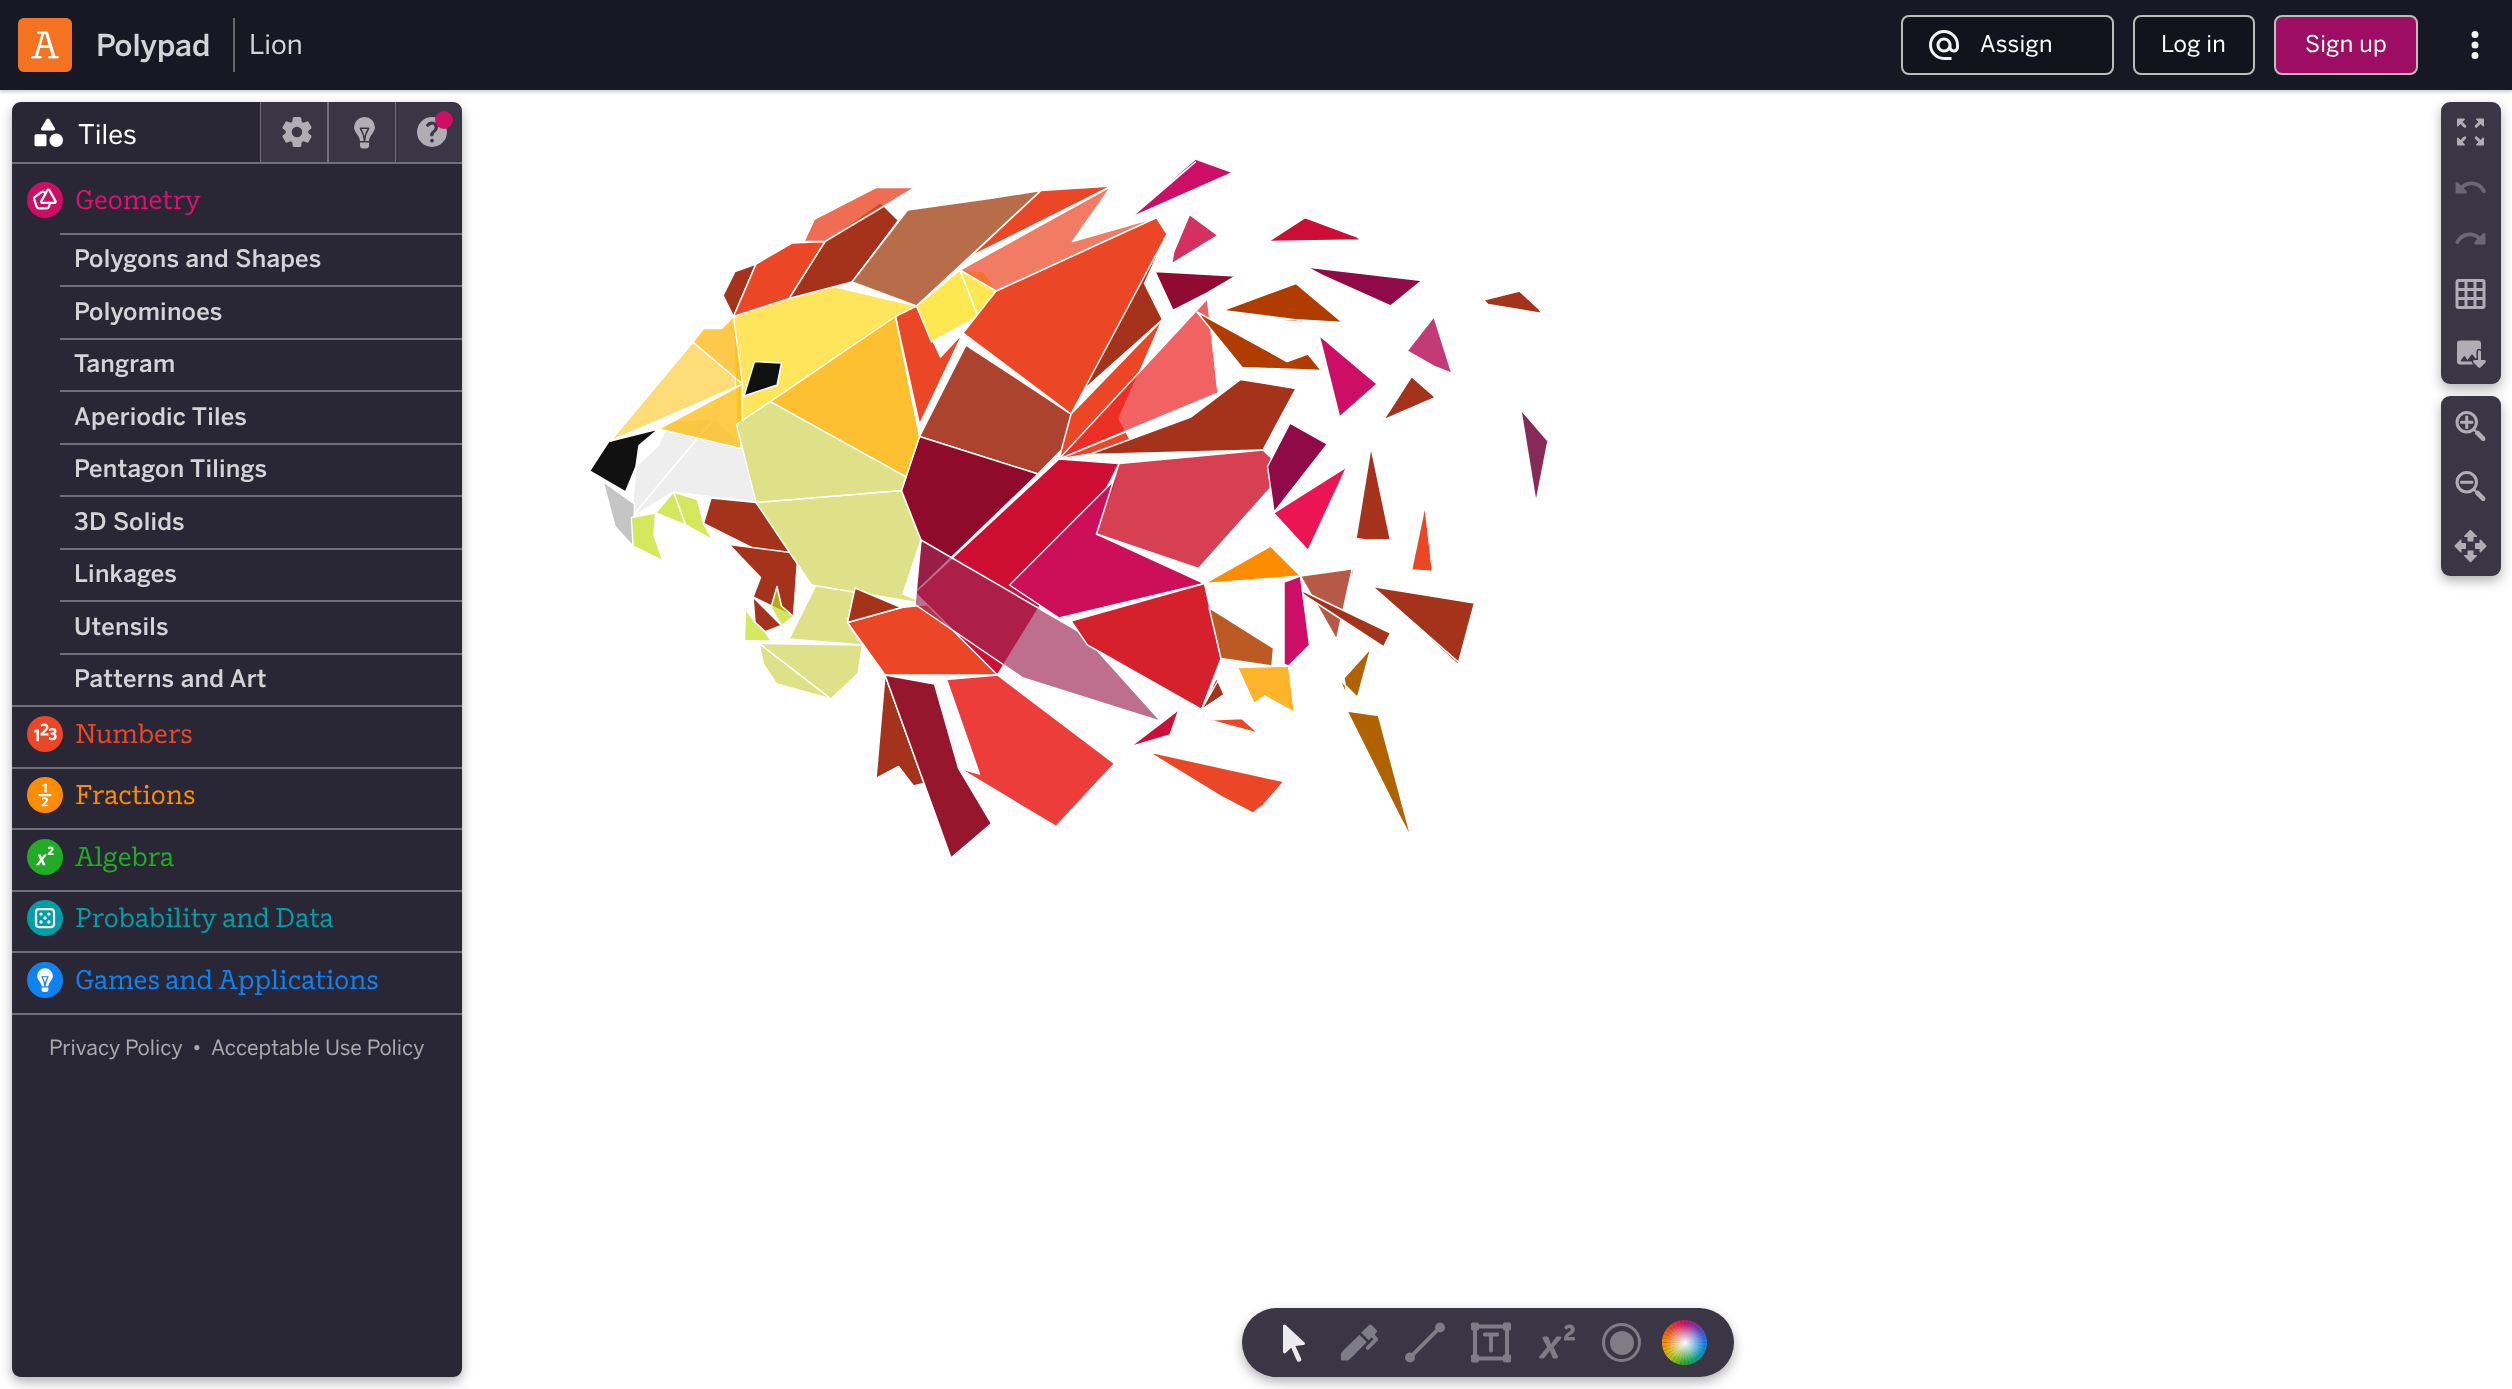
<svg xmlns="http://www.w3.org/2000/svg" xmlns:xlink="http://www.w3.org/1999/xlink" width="2512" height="1389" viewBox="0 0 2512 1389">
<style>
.cls-1{font:500 30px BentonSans;fill:#d4d4d7}
.cls-2{font:27px 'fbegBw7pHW';fill:#d4d4d7}
.cls-3{font:23px 'fbegBw7pHW';letter-spacing:0.25px;fill:#ffffff}
.cls-4{font:27px 'fbegBw7pHW';fill:#ffffff}
.cls-5{font:27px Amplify;fill:#e00f70}
.cls-6{font:500 24px BentonSans;letter-spacing:0.25px;fill:#d4d4d7}
.cls-7{font:27px Amplify;fill:#eb4726}
.cls-8{font:27px Amplify;fill:#fd8c00}
.cls-9{font:27px Amplify;fill:#22ab24}
.cls-10{font:27px Amplify;fill:#009ea6}
.cls-11{font:27px Amplify;fill:#0f82f2}
.cls-12{font:21px 'fbegBw7pHW';fill:#a9a9ae}
</style>
<defs>
<radialGradient id="g1" gradientUnits="userSpaceOnUse" cx="1685" cy="1343" r="32"><stop offset="0" stop-color="#ffffff"/><stop offset="0.6" stop-color="#ffffff" stop-opacity="0"/></radialGradient>
</defs>
<rect width="100%" height="100%" fill="#ffffff"/>
<rect fill="#000000" fill-opacity="0.07" filter="blur(2px)" x="0" y="2" width="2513" height="90"/>
<rect fill="#000000" fill-opacity="0.12" filter="blur(1.5px)" x="0" y="2" width="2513" height="90"/>
<rect fill="#000000" fill-opacity="0.3" filter="blur(6px)" x="12" y="107" width="450" height="1275" rx="9"/>
<rect fill="#000000" fill-opacity="0.3" filter="blur(6px)" x="2441" y="107" width="60" height="282" rx="9"/>
<rect fill="#181824" x="0" y="0" width="2512" height="90"/>
<image xlink:href="image0.png" x="18" y="18" width="54" height="54"/>
<rect fill="#666666" x="233" y="18" width="2" height="54"/>
<rect fill="#13131d" stroke="#bdbdbd" stroke-width="2" x="1902" y="16" width="211" height="58" rx="7"/>
<image xlink:href="image1.png" x="1929" y="30" width="30" height="30"/>
<rect fill="#13131d" stroke="#bdbdbd" stroke-width="2" x="2134" y="16" width="120" height="58" rx="7"/>
<rect fill="#9c0d63" stroke="#bdbdbd" stroke-width="2" x="2275" y="16" width="142" height="58" rx="7"/>
<image xlink:href="image2.png" x="2471" y="31" width="8" height="28"/>
<path fill="#292735" d="M21 102H261V162H12V111C12 106 16 102 21 102Z"/>
<rect fill="#716e79" x="260" y="102" width="1" height="60"/>
<image xlink:href="image3.png" x="34" y="118" width="29" height="29"/>
<rect fill="#3a3645" x="261" y="102" width="66" height="60"/>
<rect fill="#716e79" x="327" y="102" width="2" height="60"/>
<image xlink:href="image4.png" x="282" y="117" width="30" height="30"/>
<rect fill="#3a3645" x="329" y="102" width="66" height="60"/>
<rect fill="#716e79" x="395" y="102" width="1" height="60"/>
<image xlink:href="image5.png" x="354" y="117" width="21" height="32"/>
<path fill="#3a3645" d="M396 102H453C458 102 462 106 462 111V162H396Z"/>
<image xlink:href="image6.png" x="417" y="117" width="30" height="30"/>
<circle fill="#cd0e66" cx="444" cy="120" r="9"/>
<path fill="#292735" d="M12 162H462V1368C462 1373 458 1377 453 1377H21C16 1377 12 1373 12 1368Z"/>
<rect fill="#716e79" x="12" y="162" width="450" height="2"/>
<circle fill="#cd0e66" cx="45" cy="200" r="18"/>
<image xlink:href="image7.png" x="33" y="188" width="24" height="22"/>
<rect fill="#716e79" x="60" y="233" width="402" height="2"/>
<rect fill="#716e79" x="60" y="285" width="402" height="2"/>
<rect fill="#716e79" x="60" y="338" width="402" height="2"/>
<rect fill="#716e79" x="60" y="390" width="402" height="2"/>
<rect fill="#716e79" x="60" y="443" width="402" height="2"/>
<rect fill="#716e79" x="60" y="495" width="402" height="2"/>
<rect fill="#716e79" x="60" y="548" width="402" height="2"/>
<rect fill="#716e79" x="60" y="600" width="402" height="2"/>
<rect fill="#716e79" x="60" y="653" width="402" height="2"/>
<rect fill="#716e79" x="12" y="705" width="450" height="2"/>
<circle fill="#eb4726" cx="45" cy="734" r="18"/>
<image xlink:href="image8.png" x="33" y="723" width="24" height="19"/>
<rect fill="#716e79" x="12" y="767" width="450" height="2"/>
<circle fill="#fd8c00" cx="45" cy="795" r="18"/>
<image xlink:href="image9.png" x="38" y="783" width="14" height="24"/>
<rect fill="#716e79" x="12" y="828" width="450" height="2"/>
<circle fill="#22ab24" cx="45" cy="857" r="18"/>
<image xlink:href="image10.png" x="36" y="846" width="18" height="20"/>
<rect fill="#716e79" x="12" y="890" width="450" height="2"/>
<circle fill="#009ea6" cx="45" cy="918" r="18"/>
<image xlink:href="image11.png" x="34" y="908" width="22" height="21"/>
<rect fill="#716e79" x="12" y="951" width="450" height="2"/>
<circle fill="#0f82f2" cx="45" cy="980" r="18"/>
<image xlink:href="image12.png" x="37" y="968" width="16" height="24"/>
<rect fill="#716e79" x="12" y="1013" width="450" height="2"/>
<image xlink:href="image13.png" x="590" y="160" width="958" height="697"/>
<rect fill="#3a3645" x="2441" y="102" width="60" height="282" rx="9"/>
<image xlink:href="image14.png" x="2457" y="118" width="27" height="28"/>
<image xlink:href="image15.png" x="2455" y="181" width="31" height="13"/>
<image xlink:href="image16.png" x="2455" y="232" width="31" height="13"/>
<image xlink:href="image17.png" x="2455" y="279" width="31" height="30"/>
<image xlink:href="image18.png" x="2457" y="340" width="29" height="28"/>
<rect fill="#000000" fill-opacity="0.3" filter="blur(6px)" x="2441" y="401" width="60" height="180" rx="9"/>
<rect fill="#3a3645" x="2441" y="396" width="60" height="180" rx="9"/>
<image xlink:href="image19.png" x="2455" y="411" width="31" height="30"/>
<image xlink:href="image20.png" x="2455" y="471" width="31" height="30"/>
<image xlink:href="image21.png" x="2454" y="529" width="33" height="34"/>
<rect fill="#000000" fill-opacity="0.3" filter="blur(6px)" x="1242" y="1313" width="492" height="69" rx="34.5"/>
<rect fill="#3a3645" x="1242" y="1308" width="492" height="69" rx="34.5"/>
<image xlink:href="image22.png" x="1283" y="1324" width="22" height="38"/>
<image xlink:href="image23.png" x="1341" y="1324" width="38" height="37"/>
<image xlink:href="image24.png" x="1405" y="1322" width="40" height="41"/>
<image xlink:href="image25.png" x="1471" y="1322" width="40" height="41"/>
<image xlink:href="image26.png" x="1539" y="1324" width="36" height="35"/>
<circle fill="#7f7c86" cx="1622" cy="1343" r="12"/>
<circle fill="none" stroke="#7f7c86" stroke-width="3" cx="1621.5" cy="1342.5" r="18"/>
<image xlink:href="image27.png" x="1662" y="1320" width="45" height="45"/>
<rect fill="url(#g1)" x="1666" y="1324" width="38" height="38"/>
<text class="cls-1" x="96" y="56">Polypad</text>
<text class="cls-2" x="249" y="54">Lion</text>
<text class="cls-3" x="1980" y="52">Assign</text>
<text class="cls-3" x="2161" y="52">Log in</text>
<text class="cls-3" x="2305" y="52">Sign up</text>
<text class="cls-4" x="78" y="144">Tiles</text>
<text class="cls-5" x="75" y="209">Geometry</text>
<text class="cls-6" x="74" y="267">Polygons and Shapes</text>
<text class="cls-6" x="74" y="320">Polyominoes</text>
<text class="cls-6" x="74" y="372">Tangram</text>
<text class="cls-6" x="74" y="425">Aperiodic Tiles</text>
<text class="cls-6" x="74" y="477">Pentagon Tilings</text>
<text class="cls-6" x="74" y="530">3D Solids</text>
<text class="cls-6" x="74" y="582">Linkages</text>
<text class="cls-6" x="74" y="635">Utensils</text>
<text class="cls-6" x="74" y="687">Patterns and Art</text>
<text class="cls-7" x="75" y="743">Numbers</text>
<text class="cls-8" x="75" y="804">Fractions</text>
<text class="cls-9" x="75" y="866">Algebra</text>
<text class="cls-10" x="75" y="927">Probability and Data</text>
<text class="cls-11" x="75" y="989">Games and Applications</text>
<text class="cls-12" x="49" y="1055">Privacy Policy</text>
<text class="cls-12" x="192" y="1055">•</text>
<text class="cls-12" x="211" y="1055">Acceptable Use Policy</text>
</svg>
